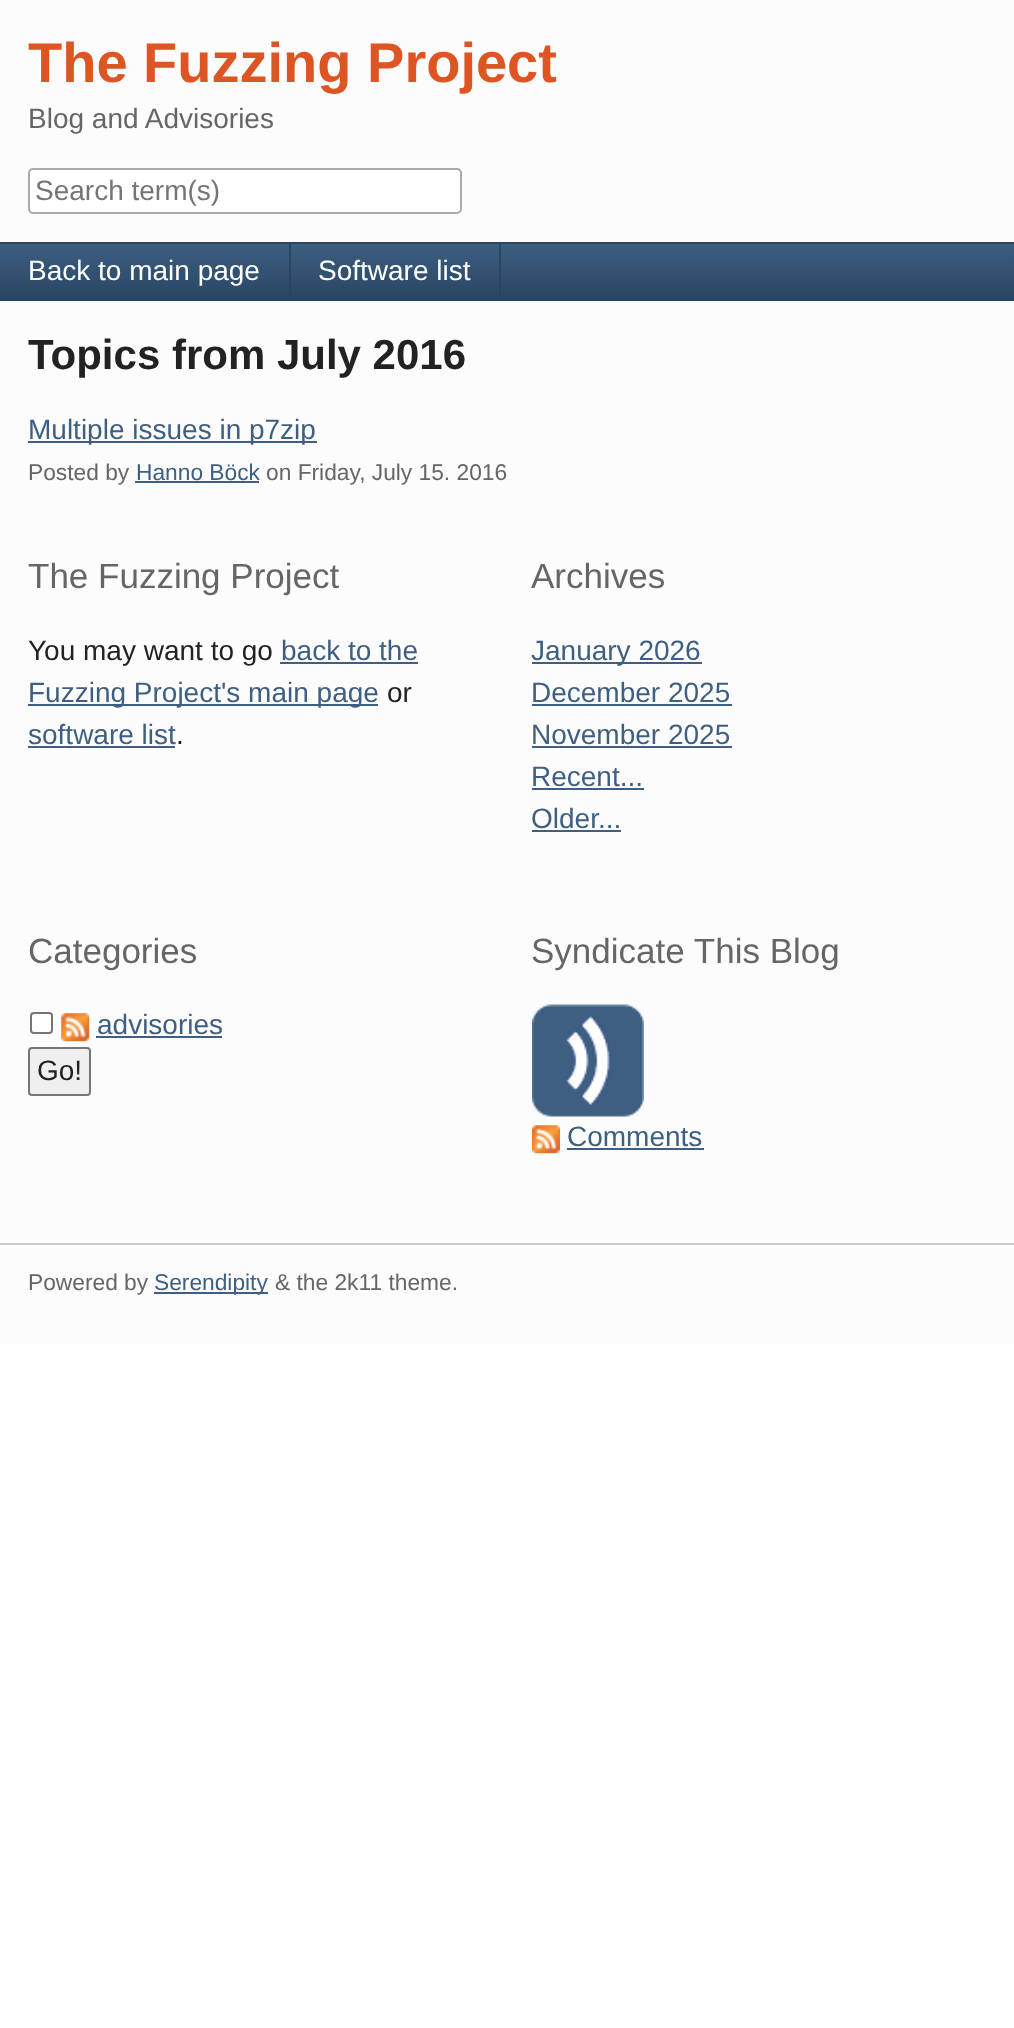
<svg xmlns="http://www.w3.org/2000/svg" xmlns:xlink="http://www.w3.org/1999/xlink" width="1014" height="2028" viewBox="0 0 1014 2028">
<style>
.cls-1{font:bold 56px Liberation Sans;fill:#dd5522}
.cls-2{font:28px Liberation Sans;fill:#666666}
.cls-3{font:28px Liberation Sans;fill:#757575}
.cls-4{font:28px Liberation Sans;fill:#ffffff}
.cls-5{font:bold 42px Liberation Sans;fill:#222222}
.cls-6{font:28px Liberation Sans;fill:#3e5f81}
.cls-7{font:22.75px Liberation Sans;fill:#666666}
.cls-8{font:22.75px Liberation Sans;fill:#3e5f81}
.cls-9{font:35px Liberation Sans;fill:#666666}
.cls-10{font:28px Liberation Sans;fill:#222222}
</style>
<defs>
<linearGradient id="g1" gradientUnits="userSpaceOnUse" x1="508" y1="243" x2="508" y2="299"><stop offset="0" stop-color="#3e5f81"/><stop offset="1" stop-color="#294564"/></linearGradient>
</defs>
<rect width="100%" height="100%" fill="#ffffff"/>
<rect fill="#fcfcfc" x="0" y="0" width="1014" height="1344"/>
<rect fill="#ffffff" stroke="#aaaaaa" stroke-width="2" x="29" y="169" width="432" height="44" rx="4"/>
<rect fill="url(#g1)" x="0" y="244" width="1014" height="55"/>
<rect fill="#294564" x="0" y="242" width="1014" height="2"/>
<rect fill="#294564" x="0" y="299" width="1014" height="2"/>
<rect fill="#294564" x="289" y="243" width="2" height="56"/>
<rect fill="#294564" x="499" y="243" width="2" height="56"/>
<rect fill="#3e5f81" x="28" y="441" width="289" height="2"/>
<rect fill="#3e5f81" x="135" y="481" width="124" height="2"/>
<rect fill="#3e5f81" x="280" y="662" width="138" height="2"/>
<rect fill="#3e5f81" x="28" y="704" width="350" height="2"/>
<rect fill="#3e5f81" x="28" y="746" width="147" height="2"/>
<rect fill="#3e5f81" x="532" y="662" width="170" height="2"/>
<rect fill="#3e5f81" x="532" y="704" width="200" height="2"/>
<rect fill="#3e5f81" x="532" y="746" width="200" height="2"/>
<rect fill="#3e5f81" x="532" y="788" width="112" height="2"/>
<rect fill="#3e5f81" x="532" y="830" width="89" height="2"/>
<rect fill="#ffffff" stroke="#767676" stroke-width="2" x="31" y="1013" width="21" height="20" rx="3"/>
<image xlink:href="image0.png" x="61" y="1013" width="29" height="29"/>
<rect fill="#3e5f81" x="96" y="1036" width="126" height="2"/>
<rect fill="#efefef" stroke="#767676" stroke-width="2" x="29" y="1048" width="61" height="47" rx="3"/>
<image xlink:href="image1.png" x="532" y="1004" width="112" height="113"/>
<image xlink:href="image2.png" x="532" y="1125" width="28" height="29"/>
<rect fill="#3e5f81" x="567" y="1148" width="137" height="2"/>
<rect fill="#cccccc" x="0" y="1243" width="1014" height="2"/>
<rect fill="#3e5f81" x="154" y="1292" width="114" height="2"/>
<text class="cls-1" x="28" y="82">The Fuzzing Project</text>
<text class="cls-2" x="28" y="128">Blog and Advisories</text>
<text class="cls-3" x="35" y="200">Search term(s)</text>
<text class="cls-4" x="28" y="280">Back to main page</text>
<text class="cls-4" x="318" y="280">Software list</text>
<text class="cls-5" x="28" y="369">Topics from July 2016</text>
<text class="cls-6" x="28" y="439">Multiple issues in p7zip</text>
<text class="cls-7" x="28" y="480">Posted by</text>
<text class="cls-8" x="136" y="480">Hanno Böck</text>
<text class="cls-7" x="266" y="480">on Friday, July 15. 2016</text>
<text class="cls-9" x="28" y="588">The Fuzzing Project</text>
<text class="cls-10" x="28" y="660">You may want to go</text>
<text class="cls-6" x="281" y="660">back to the</text>
<text class="cls-6" x="28" y="702">Fuzzing Project's main page</text>
<text class="cls-10" x="387" y="702">or</text>
<text class="cls-6" x="28" y="744">software list</text>
<text class="cls-10" x="176" y="744">.</text>
<text class="cls-9" x="531" y="588">Archives</text>
<text class="cls-6"><tspan x="531" y="660">January 2026</tspan><tspan x="531" y="702">December 2025</tspan><tspan x="531" y="744">November 2025</tspan><tspan x="531" y="786">Recent...</tspan><tspan x="531" y="828">Older...</tspan></text>
<text class="cls-9" x="28" y="963">Categories</text>
<text class="cls-6" x="97" y="1034">advisories</text>
<text class="cls-10" x="37" y="1080">Go!</text>
<text class="cls-9" x="531" y="963">Syndicate This Blog</text>
<text class="cls-6" x="567" y="1146">Comments</text>
<text class="cls-7" x="28" y="1290">Powered by</text>
<text class="cls-8" x="154" y="1290">Serendipity</text>
<text class="cls-7" x="275" y="1290">&amp; the 2k11 theme.</text>
</svg>
